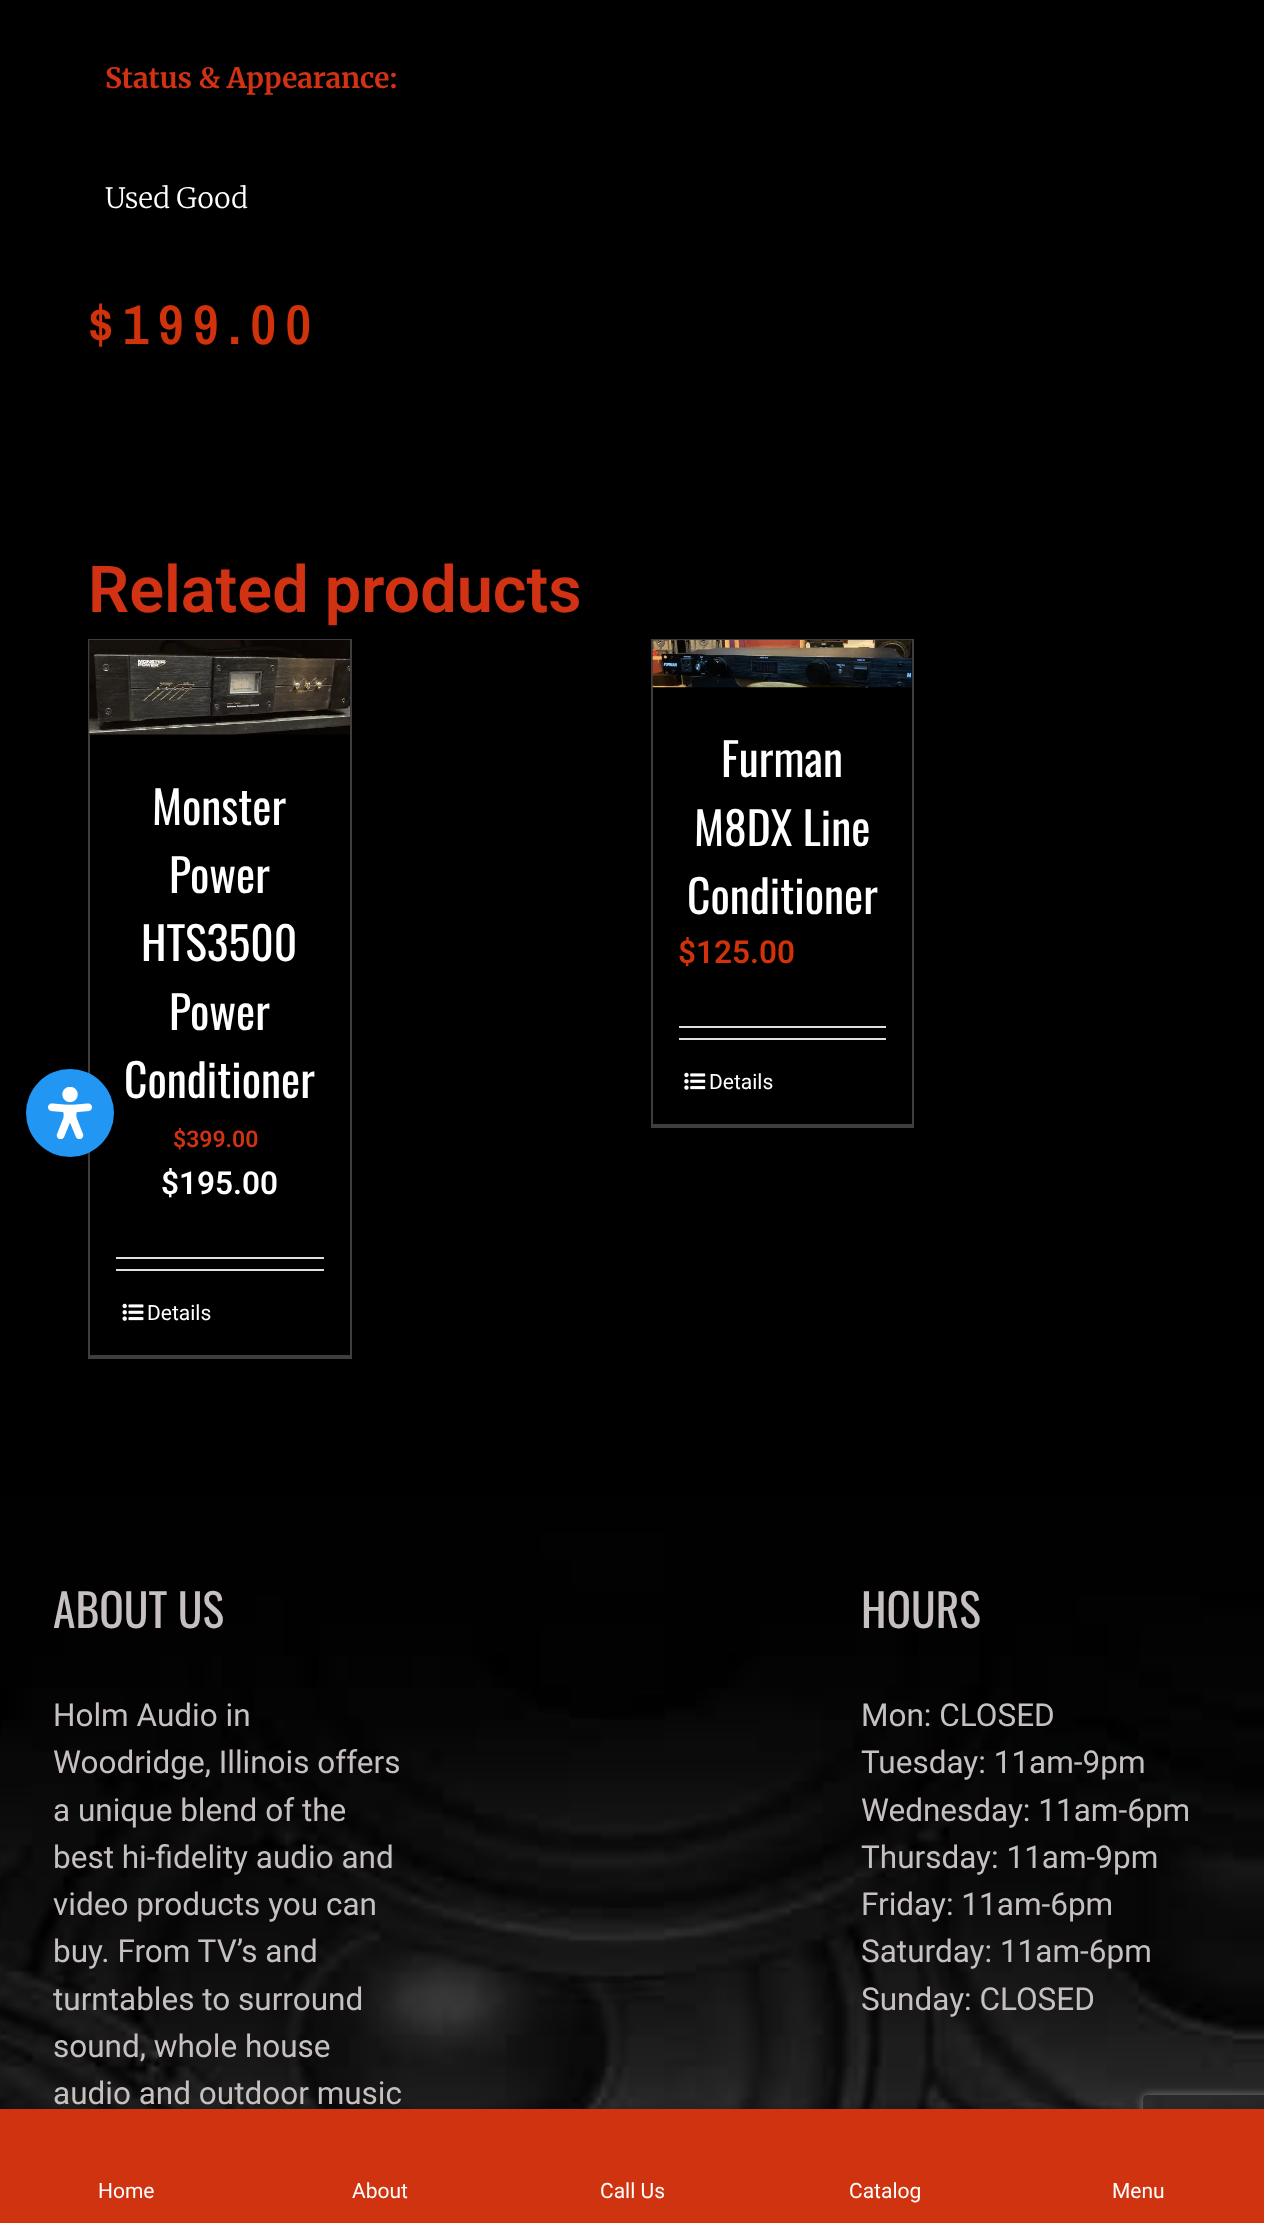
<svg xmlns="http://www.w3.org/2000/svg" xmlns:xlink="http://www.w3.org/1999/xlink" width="1264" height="2223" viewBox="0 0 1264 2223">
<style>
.cls-1{font:bold 28px Merriweather;fill:#d13213}
.cls-2{font:300 28px Merriweather;fill:#ffffff}
.cls-3{font:600 56px Archivo Narrow;letter-spacing:9.5px;fill:#d0320b}
.cls-4{font:600 64.75px Roboto;fill:#d13213}
.cls-5{font:45.5px Oswald;fill:#ffffff}
.cls-6{font:600 23px Roboto;fill:#d13213}
.cls-7{font:600 31.5px Roboto;fill:#ffffff}
.cls-8{font:21px Roboto;fill:#ffffff}
.cls-9{font:600 31.5px Roboto;fill:#d0320b}
.cls-10{font:45.5px Oswald;fill:#c6c0c0}
.cls-11{font:31.5px Roboto;fill:#c6c0c0}
</style>
<defs>
<clipPath id="clip1"><path d="M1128 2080H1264V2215H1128ZM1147 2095H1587C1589 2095 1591 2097 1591 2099V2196C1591 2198 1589 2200 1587 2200H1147C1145 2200 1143 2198 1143 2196V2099C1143 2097 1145 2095 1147 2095Z" clip-rule="evenodd"/></clipPath>
</defs>
<rect width="100%" height="100%" fill="#000000"/>
<rect fill="#3e3e3e" x="88" y="639" width="264" height="1"/>
<rect fill="#3e3e3e" x="350" y="639" width="2" height="719"/>
<rect fill="#3e3e3e" x="88" y="1355" width="264" height="4"/>
<rect fill="#3e3e3e" x="88" y="639" width="2" height="719"/>
<image xlink:href="image0.png" x="89" y="640" width="261" height="95"/>
<rect fill="#e0dede" x="116" y="1257" width="208" height="2"/>
<rect fill="#e0dede" x="116" y="1269" width="208" height="2"/>
<image xlink:href="image1.png" x="122" y="1303" width="22" height="18"/>
<rect fill="#3e3e3e" x="651" y="639" width="263" height="2"/>
<rect fill="#3e3e3e" x="912" y="639" width="2" height="488"/>
<rect fill="#3e3e3e" x="651" y="1124" width="263" height="4"/>
<rect fill="#3e3e3e" x="651" y="639" width="2" height="488"/>
<image xlink:href="image2.png" x="652" y="640" width="260" height="48"/>
<rect fill="#e0dede" x="679" y="1026" width="207" height="2"/>
<rect fill="#e0dede" x="679" y="1038" width="207" height="2"/>
<image xlink:href="image3.png" x="684" y="1072" width="22" height="18"/>
<image xlink:href="image4.png" x="0" y="1498" width="1264" height="611"/>
<rect fill="#000000" fill-opacity="0.2" filter="blur(4.5px)" x="30" y="1073" width="87" height="87" rx="43.5"/>
<circle fill="#2196f3" cx="70" cy="1113" r="44"/>
<image xlink:href="image5.png" x="48" y="1087" width="44" height="52"/>
<rect fill="#000000" fill-opacity="0.2" filter="blur(4.5px)" x="0" y="2109" width="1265" height="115"/>
<g clip-path="url(#clip1)">
<rect fill="#808080" filter="blur(4.5px)" x="1143" y="2095" width="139" height="105" rx="4"/>
</g>
<rect fill="#d0330f" x="0" y="2109" width="1264" height="114"/>
<text class="cls-1" x="105" y="88">Status &amp; Appearance:</text>
<text class="cls-2" x="105" y="208">Used Good</text>
<text class="cls-3" x="88" y="344">$199.00</text>
<text class="cls-4" x="88" y="612">Related products</text>
<text class="cls-5" x="152" y="825">Monster</text>
<text class="cls-5" x="169" y="893">Power</text>
<text class="cls-5" x="141" y="961">HTS3500</text>
<text class="cls-5" x="169" y="1030">Power</text>
<text class="cls-5" x="124" y="1098">Conditioner</text>
<text class="cls-6" x="173" y="1147">$399.00</text>
<text class="cls-7" x="161" y="1194">$195.00</text>
<text class="cls-8" x="147" y="1320">Details</text>
<text class="cls-5" x="721" y="777">Furman</text>
<text class="cls-5" x="694" y="846">M8DX Line</text>
<text class="cls-5" x="687" y="914">Conditioner</text>
<text class="cls-9" x="678" y="963">$125.00</text>
<text class="cls-8" x="709" y="1089">Details</text>
<text class="cls-10" x="53" y="1628">ABOUT US</text>
<text class="cls-11"><tspan x="53" y="1726">Holm Audio in</tspan><tspan x="53" y="1773">Woodridge, Illinois offers</tspan><tspan x="53" y="1821">a unique blend of the</tspan><tspan x="53" y="1868">best hi-fidelity audio and</tspan><tspan x="53" y="1915">video products you can</tspan><tspan x="53" y="1962">buy. From TV’s and</tspan><tspan x="53" y="2010">turntables to surround</tspan><tspan x="53" y="2057">sound, whole house</tspan><tspan x="53" y="2104">audio and outdoor music</tspan></text>
<text class="cls-10" x="861" y="1628">HOURS</text>
<text class="cls-11"><tspan x="861" y="1726">Mon: CLOSED</tspan><tspan x="861" y="1773">Tuesday: 11am-9pm</tspan><tspan x="861" y="1821">Wednesday: 11am-6pm</tspan><tspan x="861" y="1868">Thursday: 11am-9pm</tspan><tspan x="861" y="1915">Friday: 11am-6pm</tspan><tspan x="861" y="1962">Saturday: 11am-6pm</tspan><tspan x="861" y="2010">Sunday: CLOSED</tspan></text>
<text class="cls-8" x="98" y="2198">Home</text>
<text class="cls-8" x="352" y="2198">About</text>
<text class="cls-8" x="600" y="2198">Call Us</text>
<text class="cls-8" x="849" y="2198">Catalog</text>
<text class="cls-8" x="1112" y="2198">Menu</text>
</svg>
